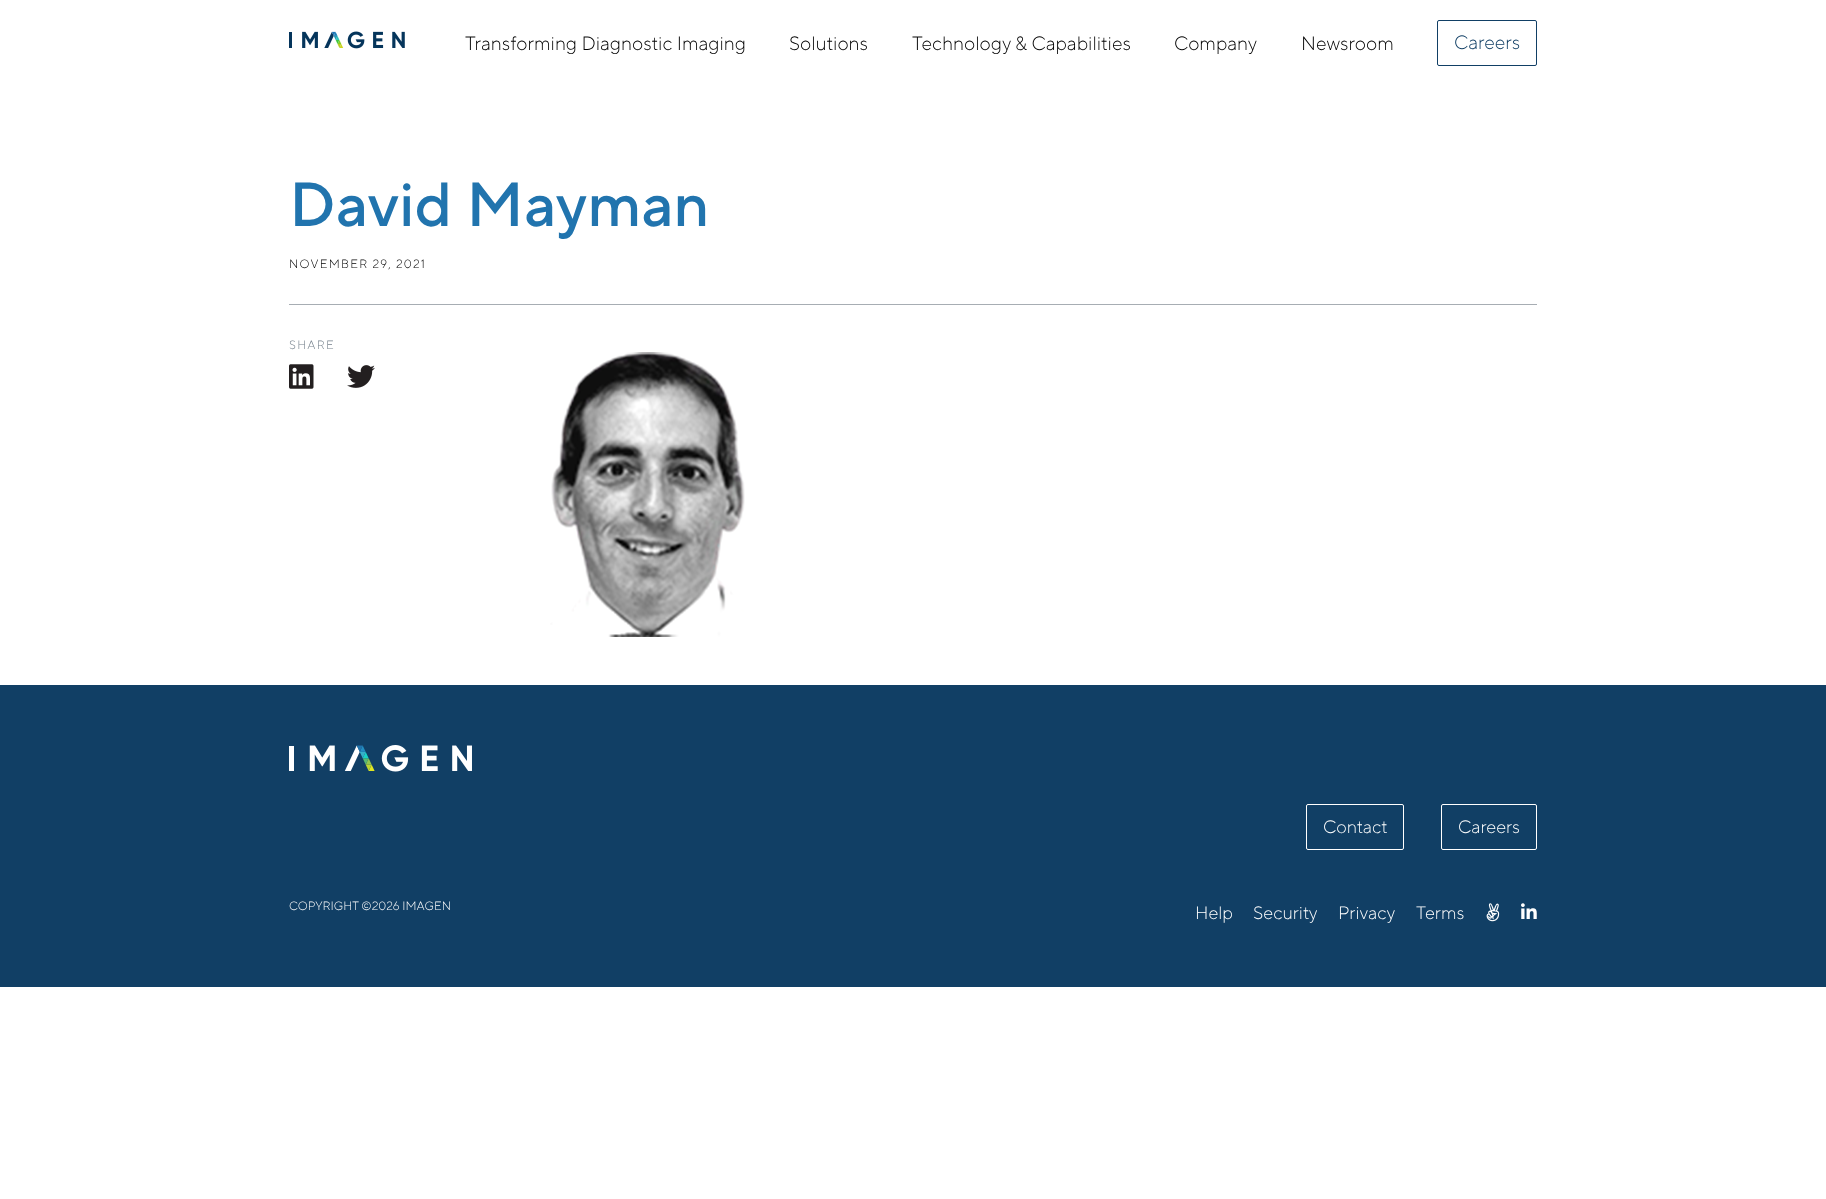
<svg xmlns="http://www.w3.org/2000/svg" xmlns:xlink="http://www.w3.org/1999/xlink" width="1826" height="1199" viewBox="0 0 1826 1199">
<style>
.cls-1{font:300 19.25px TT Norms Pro;fill:#000000}
.cls-2{font:300 19.25px TT Norms Pro;fill:#113f65}
.cls-3{font:500 62px TT Norms Pro;fill:#2174ae}
.cls-4{font:300 12px TT Norms Pro;letter-spacing:1.25px;fill:#000000}
.cls-5{font:300 12px TT Norms Pro;letter-spacing:1.25px;fill:#76828d}
.cls-6{font:300 18px TT Norms Pro;fill:#ffffff}
.cls-7{font:300 12px TT Norms Pro;fill:#ffffff}
</style>
<rect width="100%" height="100%" fill="#ffffff"/>
<image xlink:href="image0.png" x="289" y="31" width="116" height="18"/>
<rect fill="none" stroke="#113f65" x="1437.5" y="20.5" width="99" height="45" rx="1.5"/>
<rect fill="#a7adb3" x="289" y="304" width="1248" height="1"/>
<image xlink:href="image1.png" x="289" y="364" width="25" height="25"/>
<image xlink:href="image2.png" x="347" y="365" width="28" height="23"/>
<image xlink:href="image3.png" x="550" y="352" width="195" height="285"/>
<rect fill="#113f65" x="0" y="685" width="1826" height="302"/>
<image xlink:href="image4.png" x="289" y="745" width="183" height="27"/>
<rect fill="none" stroke="#ffffff" x="1306.5" y="804.5" width="97" height="45" rx="1.5"/>
<rect fill="none" stroke="#ffffff" x="1441.5" y="804.5" width="95" height="45" rx="1.5"/>
<image xlink:href="image5.png" x="1486" y="903" width="14" height="19"/>
<image xlink:href="image6.png" x="1521" y="903" width="16" height="16"/>
<text class="cls-1" x="465" y="50">Transforming Diagnostic Imaging</text>
<text class="cls-1" x="789" y="50">Solutions</text>
<text class="cls-1" x="912" y="50">Technology &amp; Capabilities</text>
<text class="cls-1" x="1174" y="50">Company</text>
<text class="cls-1" x="1301" y="50">Newsroom</text>
<text class="cls-2" x="1454" y="49">Careers</text>
<text class="cls-3" x="289" y="226">David Mayman</text>
<text class="cls-4" x="289" y="268">NOVEMBER 29, 2021</text>
<text class="cls-5" x="289" y="349">SHARE</text>
<text class="cls-6" x="1323" y="833">Contact</text>
<text class="cls-6" x="1458" y="833">Careers</text>
<text class="cls-7" x="289" y="910">COPYRIGHT ©2026 IMAGEN</text>
<text class="cls-6" x="1195" y="919">Help</text>
<text class="cls-6" x="1253" y="919">Security</text>
<text class="cls-6" x="1338" y="919">Privacy</text>
<text class="cls-6" x="1416" y="919">Terms</text>
</svg>
